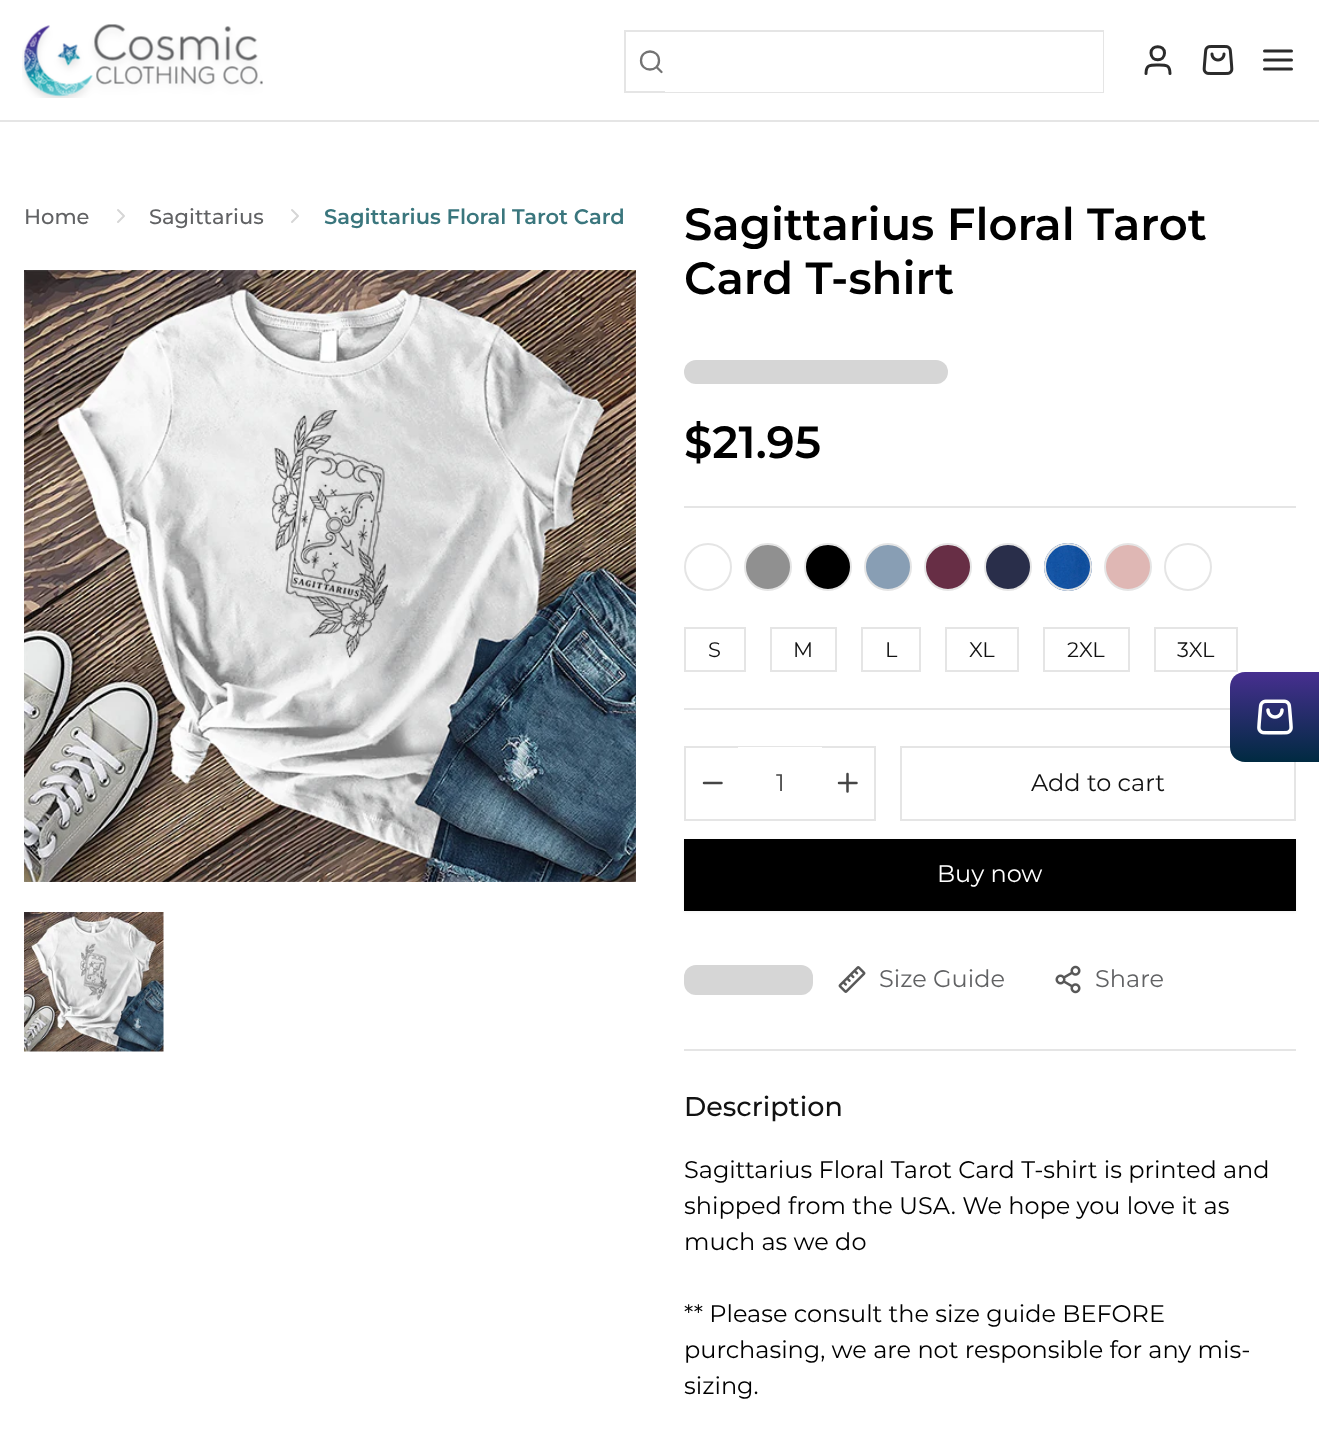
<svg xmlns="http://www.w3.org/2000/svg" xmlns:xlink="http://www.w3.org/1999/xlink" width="1319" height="1434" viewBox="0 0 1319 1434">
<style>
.cls-1{font:500 21px Montserrat;fill:#616264}
.cls-2{font:600 21px Montserrat;fill:#3a767d}
.cls-3{font:600 45px Montserrat;fill:#000000}
.cls-4{font:100 21px Montserrat;fill:#121212}
.cls-5{font:100 24px Montserrat;fill:#454545}
.cls-6{font:100 24px Montserrat;fill:#121212}
.cls-7{font:100 24px Montserrat;fill:#ffffff}
.cls-8{font:100 24px Montserrat;fill:#616264}
.cls-9{font:500 27px Montserrat;fill:#121212}
.cls-10{font:100 24px Montserrat;fill:#000000}
</style>
<defs>
<linearGradient id="g1" gradientUnits="userSpaceOnUse" x1="1275" y1="672" x2="1275" y2="762"><stop offset="0" stop-color="#472f90"/><stop offset="1" stop-color="#002a41"/></linearGradient>
</defs>
<rect width="100%" height="100%" fill="#ffffff"/>
<image xlink:href="image0.png" x="22" y="24" width="241" height="74"/>
<rect fill="none" stroke="#e5e5e5" stroke-width="2" x="625" y="31" width="478" height="61"/>
<path fill="none" stroke="#737373" stroke-width="2.3" stroke-linecap="round" stroke-linejoin="round" d="M661.5 72L656.5 67M659 60.5C659 72.5 641 72.5 641 60.5C641 48.5 659 48.5 659 60.5Z"/>
<rect fill="#ffffff" x="665" y="32" width="438" height="60"/>
<path fill="none" stroke="#2b2b2b" stroke-width="3" stroke-linecap="round" stroke-linejoin="round" d="M1170 73.5C1170 64.5 1165.5 65 1158 65C1150.5 65 1146 64.5 1146 73.5M1164.5 53C1164.5 62 1151 62 1151 53C1151 44.5 1164.5 44.5 1164.5 53Z"/>
<image xlink:href="image1.png" x="1202" y="45" width="32" height="30"/>
<path fill="none" stroke="#2b2b2b" stroke-width="3" stroke-linecap="round" stroke-linejoin="round" d="M1264.5 60H1291.5M1264.5 51H1291.5M1264.5 69H1291.5"/>
<rect fill="#e5e5e5" x="0" y="120" width="1319" height="2"/>
<rect fill="none" stroke="#e5e5e5" stroke-width="2" x="901" y="747" width="394" height="73"/>
<path fill="url(#g1)" d="M1245 672H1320V762H1245C1236.5 762 1230 755.5 1230 747V687C1230 678.5 1236.5 672 1245 672Z"/>
<image xlink:href="image2.png" x="1257" y="699" width="36" height="36"/>
<path fill="none" stroke="#d6d6d6" stroke-width="2" stroke-linecap="round" stroke-linejoin="round" d="M118 222L124 216L118 210"/>
<path fill="none" stroke="#d6d6d6" stroke-width="2" stroke-linecap="round" stroke-linejoin="round" d="M292 222L298 216L292 210"/>
<image xlink:href="image3.png" x="24" y="270" width="612" height="612"/>
<image xlink:href="image4.png" x="24" y="912" width="140" height="140"/>
<rect fill="#d6d6d6" x="684" y="360" width="264" height="24" rx="12"/>
<rect fill="#e5e5e5" x="684" y="506" width="612" height="2"/>
<circle fill="none" stroke="#e5e5e5" stroke-width="2" cx="708" cy="567" r="23"/>
<circle fill="#909090" stroke="#e5e5e5" stroke-width="2" cx="768" cy="567" r="23"/>
<circle fill="#000000" stroke="#e5e5e5" stroke-width="2" cx="828" cy="567" r="23"/>
<circle fill="#889eb4" stroke="#e5e5e5" stroke-width="2" cx="888" cy="567" r="23"/>
<circle fill="#672e45" stroke="#e5e5e5" stroke-width="2" cx="948" cy="567" r="23"/>
<circle fill="#292e4a" stroke="#e5e5e5" stroke-width="2" cx="1008" cy="567" r="23"/>
<image xlink:href="image5.png" x="1044" y="543" width="48" height="48"/>
<circle fill="none" stroke="#e5e5e5" stroke-width="2" cx="1068" cy="567" r="23"/>
<circle fill="#dfb7b4" stroke="#e5e5e5" stroke-width="2" cx="1128" cy="567" r="23"/>
<circle fill="none" stroke="#e5e5e5" stroke-width="2" cx="1188" cy="567" r="23"/>
<rect fill="none" stroke="#e5e5e5" stroke-width="2" x="685" y="628" width="60" height="43"/>
<rect fill="none" stroke="#e5e5e5" stroke-width="2" x="771" y="628" width="65" height="43"/>
<rect fill="none" stroke="#e5e5e5" stroke-width="2" x="862" y="628" width="58" height="43"/>
<rect fill="none" stroke="#e5e5e5" stroke-width="2" x="946" y="628" width="72" height="43"/>
<rect fill="none" stroke="#e5e5e5" stroke-width="2" x="1044" y="628" width="85" height="43"/>
<rect fill="none" stroke="#e5e5e5" stroke-width="2" x="1155" y="628" width="82" height="43"/>
<rect fill="#e5e5e5" x="684" y="708" width="546" height="2"/>
<rect fill="#e5e5e5" x="684" y="1049" width="612" height="2"/>
<rect fill="none" stroke="#e5e5e5" stroke-width="2" x="685" y="747" width="190" height="73"/>
<path fill="none" stroke="#454545" stroke-width="2.5" stroke-linecap="round" stroke-linejoin="round" d="M704 783H721.5"/>
<rect fill="#ffffff" x="738" y="747" width="84" height="1"/>
<path fill="none" stroke="#454545" stroke-width="2.5" stroke-linecap="round" stroke-linejoin="round" d="M847.5 774V791.5M839 783H856.5"/>
<rect fill="#000000" fill-opacity="0.05" filter="blur(1.5px)" x="684" y="840" width="612" height="72"/>
<rect fill="#000000" x="684" y="839" width="612" height="72"/>
<rect fill="#d6d6d6" x="684" y="965" width="129" height="30" rx="12"/>
<image xlink:href="image6.png" x="838" y="966" width="28" height="27"/>
<image xlink:href="image7.png" x="1055" y="965" width="26" height="29"/>
<text class="cls-1" x="24" y="224">Home</text>
<text class="cls-1" x="149" y="224">Sagittarius</text>
<text class="cls-2" x="324" y="224">Sagittarius Floral Tarot Card</text>
<text class="cls-3"><tspan x="684" y="240">Sagittarius Floral Tarot</tspan><tspan x="684" y="294">Card T-shirt</tspan></text>
<text class="cls-3" x="684" y="458">$21.95</text>
<text class="cls-4" x="708" y="657">S</text>
<text class="cls-4" x="793" y="657">M</text>
<text class="cls-4" x="885" y="657">L</text>
<text class="cls-4" x="969" y="657">XL</text>
<text class="cls-4" x="1067" y="657">2XL</text>
<text class="cls-4" x="1177" y="657">3XL</text>
<text class="cls-5" x="776" y="791">1</text>
<text class="cls-6" x="1031" y="791">Add to cart</text>
<text class="cls-7" x="937" y="882">Buy now</text>
<text class="cls-8" x="879" y="987">Size Guide</text>
<text class="cls-8" x="1095" y="987">Share</text>
<text class="cls-9" x="684" y="1116">Description</text>
<text class="cls-10"><tspan x="684" y="1178">Sagittarius Floral Tarot Card T-shirt is printed and</tspan><tspan x="684" y="1214">shipped from the USA. We hope you love it as</tspan><tspan x="684" y="1250">much as we do</tspan></text>
<text class="cls-10"><tspan x="684" y="1322">** Please consult the size guide BEFORE</tspan><tspan x="684" y="1358">purchasing, we are not responsible for any mis-</tspan><tspan x="684" y="1394">sizing.</tspan></text>
</svg>
